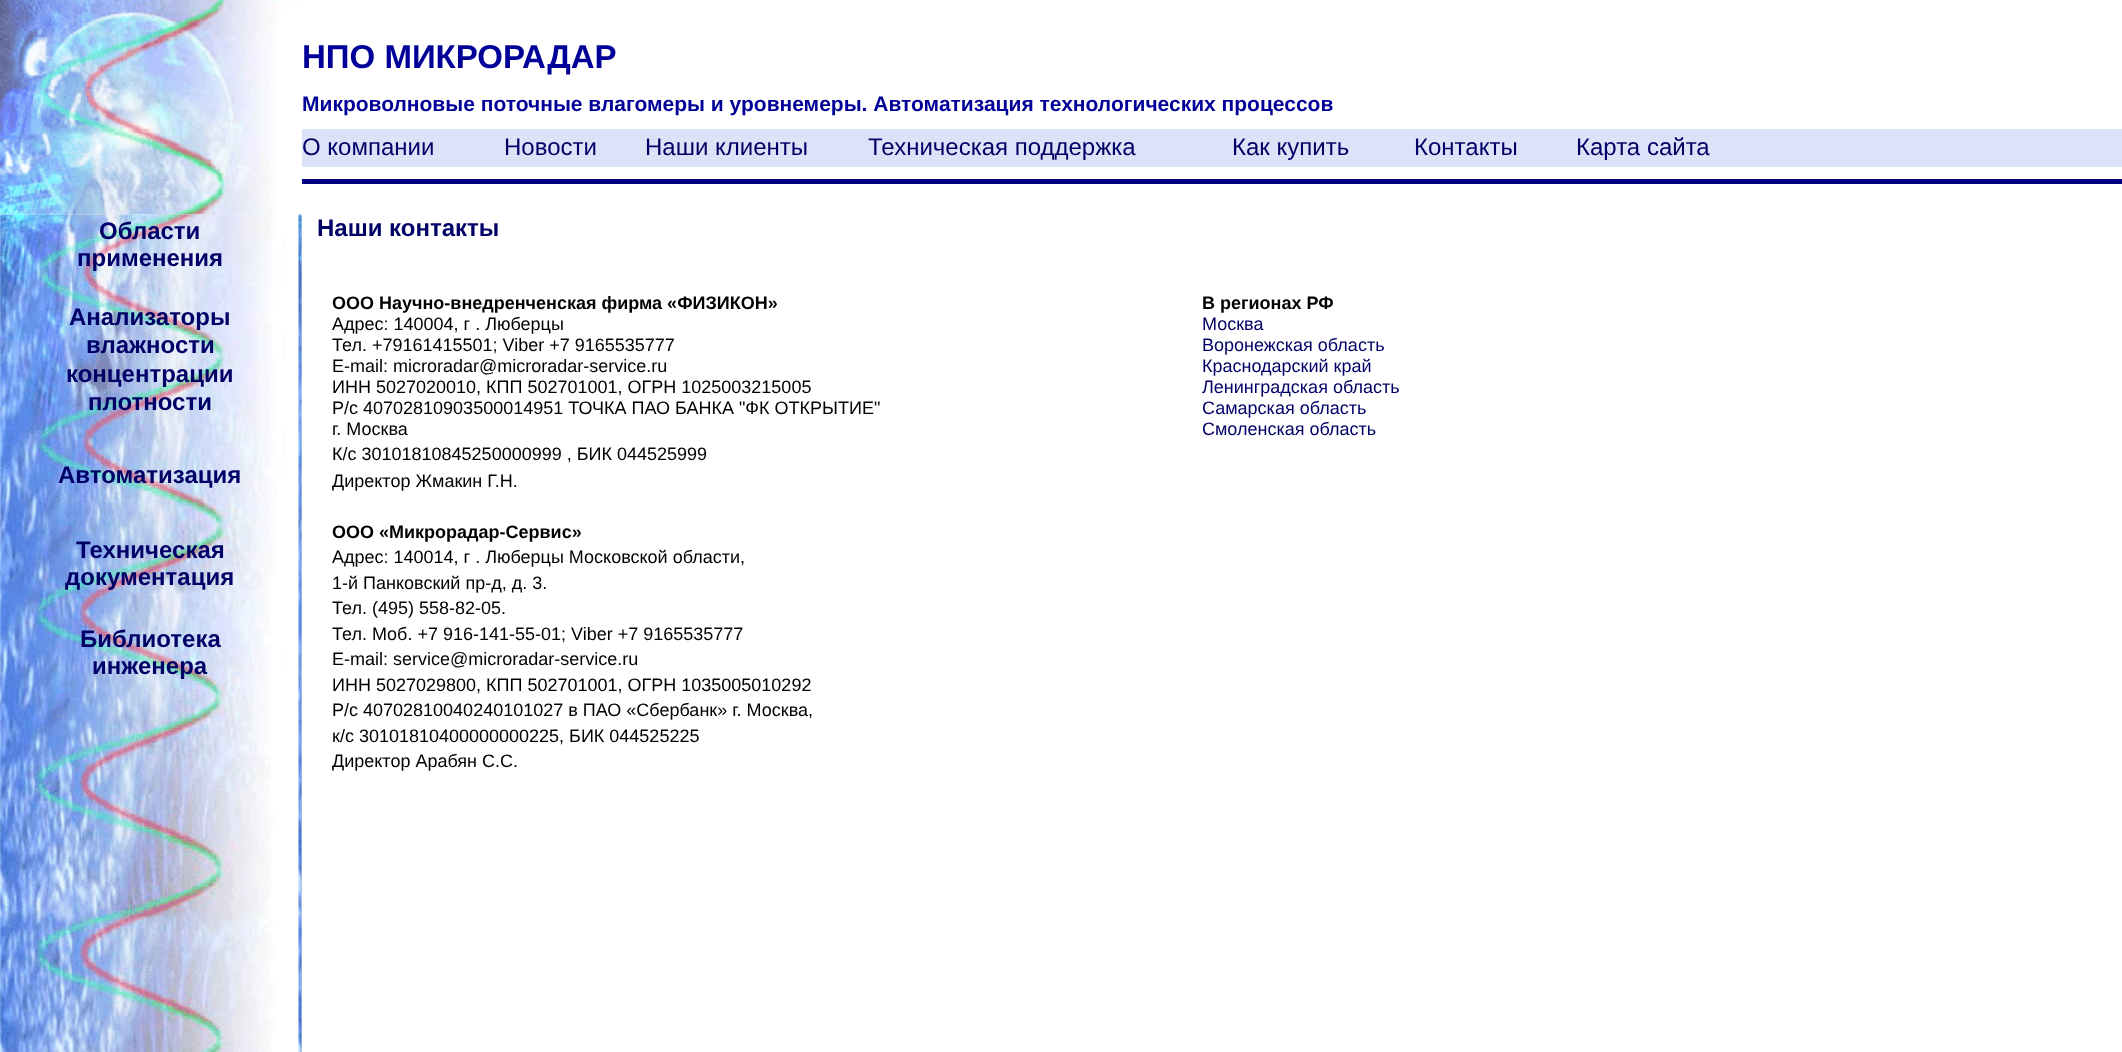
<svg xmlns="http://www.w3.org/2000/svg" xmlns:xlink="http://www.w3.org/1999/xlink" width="2122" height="1052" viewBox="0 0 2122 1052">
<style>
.cls-1{font:bold 33px Liberation Sans;fill:#000099}
.cls-2{font:bold 21px Liberation Sans;fill:#000099}
.cls-3{font:24px Liberation Sans;fill:#000066}
.cls-4{font:bold 24px Liberation Sans;fill:#000066}
.cls-5{font:bold 18px Liberation Sans;fill:#000000}
.cls-6{font:18px Liberation Sans;fill:#000000}
.cls-7{font:18px Liberation Sans;fill:#000066}
</style>
<rect width="100%" height="100%" fill="#ffffff"/>
<image xlink:href="image0.png" x="0" y="0" width="302" height="215"/>
<rect fill="#dce3f8" x="302" y="129" width="1820" height="38"/>
<rect fill="#000080" x="302" y="179" width="1820" height="5"/>
<rect fill="#cccccc" x="301" y="215" width="1" height="837"/>
<image xlink:href="image1.png" x="0" y="214" width="302" height="838"/>
<text class="cls-1" x="302" y="68">НПО МИКРОРАДАР</text>
<text class="cls-2" x="302" y="111">Микроволновые поточные влагомеры и уровнемеры. Автоматизация технологических процессов</text>
<text class="cls-3" x="302" y="155">О компании</text>
<text class="cls-3" x="504" y="155">Новости</text>
<text class="cls-3" x="645" y="155">Наши клиенты</text>
<text class="cls-3" x="868" y="155">Техническая поддержка</text>
<text class="cls-3" x="1232" y="155">Как купить</text>
<text class="cls-3" x="1414" y="155">Контакты</text>
<text class="cls-3" x="1576" y="155">Карта сайта</text>
<text class="cls-4" x="99" y="239">Области</text>
<text class="cls-4" x="77" y="266">применения</text>
<text class="cls-4" x="69" y="325">Анализаторы</text>
<text class="cls-4" x="86" y="353">влажности</text>
<text class="cls-4" x="66" y="382">концентрации</text>
<text class="cls-4" x="88" y="410">плотности</text>
<text class="cls-4" x="58" y="483">Автоматизация</text>
<text class="cls-4" x="76" y="558">Техническая</text>
<text class="cls-4" x="65" y="585">документация</text>
<text class="cls-4" x="80" y="647">Библиотека</text>
<text class="cls-4" x="92" y="674">инженера</text>
<text class="cls-4" x="317" y="236">Наши контакты</text>
<text class="cls-5" x="332" y="309">ООО Научно-внедренченская фирма «ФИЗИКОН»</text>
<text class="cls-5" x="1202" y="309">В регионах РФ</text>
<text class="cls-6" x="332" y="330">Адрес: 140004, г . Люберцы</text>
<text class="cls-7" x="1202" y="330">Москва</text>
<text class="cls-6" x="332" y="351">Тел. +79161415501; Viber +7 9165535777</text>
<text class="cls-7" x="1202" y="351">Воронежская область</text>
<text class="cls-6" x="332" y="372">E-mail: microradar@microradar-service.ru</text>
<text class="cls-7" x="1202" y="372">Краснодарский край</text>
<text class="cls-6" x="332" y="393">ИНН 5027020010, КПП 502701001, ОГРН 1025003215005</text>
<text class="cls-7" x="1202" y="393">Ленинградская область</text>
<text class="cls-6" x="332" y="414">Р/с 40702810903500014951 ТОЧКА ПАО БАНКА "ФК ОТКРЫТИЕ"</text>
<text class="cls-7" x="1202" y="414">Самарская область</text>
<text class="cls-6" x="332" y="435">г. Москва</text>
<text class="cls-7" x="1202" y="435">Смоленская область</text>
<text class="cls-6"><tspan x="332" y="460">К/с 30101810845250000999 , БИК 044525999</tspan><tspan x="332" y="487">Директор Жмакин Г.Н.</tspan></text>
<text class="cls-5" x="332" y="538">ООО «Микрорадар-Сервис»</text>
<text class="cls-6"><tspan x="332" y="563">Адрес: 140014, г . Люберцы Московской области,</tspan><tspan x="332" y="589">1-й Панковский пр-д, д. 3.</tspan><tspan x="332" y="614">Тел. (495) 558-82-05.</tspan><tspan x="332" y="640">Тел. Моб. +7 916-141-55-01; Viber +7 9165535777</tspan><tspan x="332" y="665">E-mail: service@microradar-service.ru</tspan><tspan x="332" y="691">ИНН 5027029800, КПП 502701001, ОГРН 1035005010292</tspan><tspan x="332" y="716">Р/с 40702810040240101027 в ПАО «Сбербанк» г. Москва,</tspan><tspan x="332" y="742">к/с 30101810400000000225, БИК 044525225</tspan><tspan x="332" y="767">Директор Арабян С.С.</tspan></text>
</svg>
